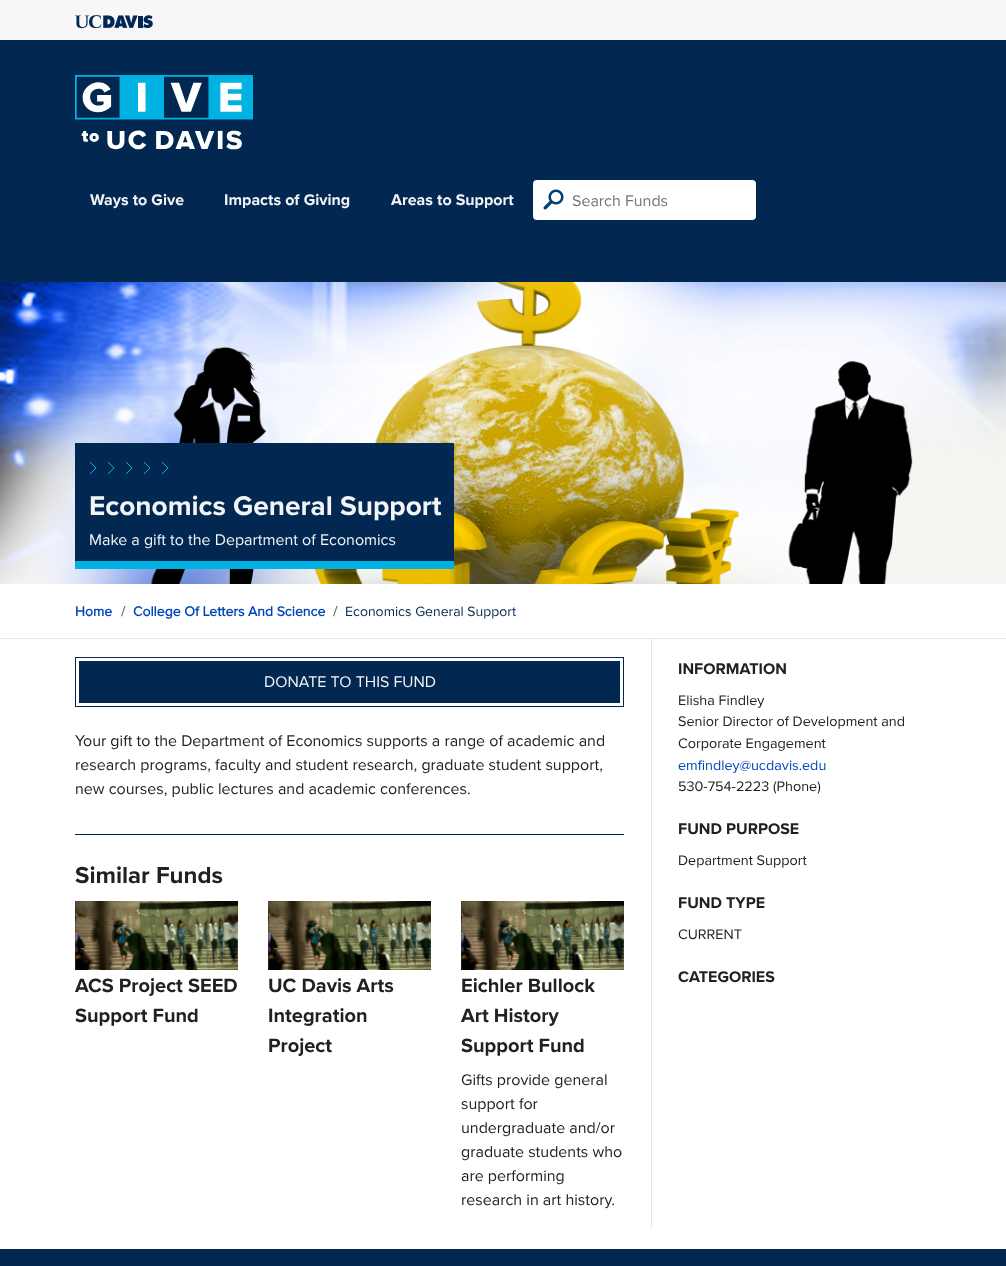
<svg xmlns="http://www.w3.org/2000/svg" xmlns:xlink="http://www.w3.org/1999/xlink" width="1006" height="1266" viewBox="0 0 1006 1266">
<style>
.cls-1{font:bold 16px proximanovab;fill:#f2f4f6}
.cls-2{font:16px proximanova;fill:#6c757d}
.cls-3{font:bold 28px proximanovab;fill:#f2f4f6}
.cls-4{font:16px proximanova;fill:#f2f4f6}
.cls-5{font:bold 14px proximanova;fill:#0047ba}
.cls-6{font:bold 14px proximanova;fill:#6c757d}
.cls-7{font:14px proximanova;fill:#022851}
.cls-8{font:16px proximanova;fill:#212121}
.cls-9{font:bold 24px proximanovab;fill:#212121}
.cls-10{font:bold 20px proximanovab;fill:#212121}
.cls-11{font:bold 16px proximanovab;fill:#212121}
.cls-12{font:14.4px proximanova;fill:#212121}
.cls-13{font:14.4px proximanova;fill:#0047ba}
</style>
<rect width="100%" height="100%" fill="#ffffff"/>
<rect fill="#f7f7f7" x="0" y="0" width="1006" height="40"/>
<image xlink:href="image0.png" x="75" y="15" width="78" height="14"/>
<rect fill="#022851" x="0" y="40" width="1006" height="242"/>
<image xlink:href="image1.png" x="75" y="75" width="178" height="75"/>
<rect fill="#ffffff" x="533" y="180" width="223" height="40" rx="4"/>
<image xlink:href="image2.png" x="543" y="189" width="21" height="21"/>
<image xlink:href="image3.png" x="0" y="282" width="1006" height="302"/>
<rect fill="#022851" x="75" y="443" width="379" height="118"/>
<rect fill="#00b2e3" x="75" y="561" width="379" height="8"/>
<path fill="none" stroke="#00b2e3" d="M108 474L114 468L108 462M90 474L96 468L90 462M126 474L132 468L126 462"/>
<path fill="none" stroke="#00b2e3" d="M162 474L168 468L162 462M144 474L150 468L144 462"/>
<rect fill="#e1e9f0" x="0" y="638" width="1006" height="1"/>
<rect fill="none" stroke="#022851" x="75.5" y="657.5" width="548" height="49"/>
<rect fill="#022851" x="79" y="661" width="541" height="42"/>
<rect fill="#022851" x="75" y="834" width="549" height="1"/>
<image xlink:href="image4.png" x="75" y="901" width="163" height="69"/>
<image xlink:href="image4.png" x="268" y="901" width="163" height="69"/>
<image xlink:href="image4.png" x="461" y="901" width="163" height="69"/>
<rect fill="#e1e9f0" x="651" y="639" width="1" height="589"/>
<rect fill="#022851" x="0" y="1249" width="1006" height="17"/>
<text class="cls-1" x="90" y="205">Ways to Give</text>
<text class="cls-1" x="224" y="205">Impacts of Giving</text>
<text class="cls-1" x="391" y="205">Areas to Support</text>
<text class="cls-2" x="572" y="206">Search Funds</text>
<text class="cls-3" x="89" y="515">Economics General Support</text>
<text class="cls-4" x="89" y="545">Make a gift to the Department of Economics</text>
<text class="cls-5" x="75" y="616">Home</text>
<text class="cls-6" x="121" y="616">/</text>
<text class="cls-5" x="133" y="616">College Of Letters And Science</text>
<text class="cls-6" x="333" y="616">/</text>
<text class="cls-7" x="345" y="616">Economics General Support</text>
<text class="cls-4" x="264" y="687">DONATE TO THIS FUND</text>
<text class="cls-8"><tspan x="75" y="746">Your gift to the Department of Economics supports a range of academic and</tspan><tspan x="75" y="770">research programs, faculty and student research, graduate student support,</tspan><tspan x="75" y="794">new courses, public lectures and academic conferences.</tspan></text>
<text class="cls-9" x="75" y="883">Similar Funds</text>
<text class="cls-10"><tspan x="75" y="992">ACS Project SEED</tspan><tspan x="75" y="1022">Support Fund</tspan></text>
<text class="cls-10"><tspan x="268" y="992">UC Davis Arts</tspan><tspan x="268" y="1022">Integration</tspan><tspan x="268" y="1052">Project</tspan></text>
<text class="cls-10"><tspan x="461" y="992">Eichler Bullock</tspan><tspan x="461" y="1022">Art History</tspan><tspan x="461" y="1052">Support Fund</tspan></text>
<text class="cls-8"><tspan x="461" y="1085">Gifts provide general</tspan><tspan x="461" y="1109">support for</tspan><tspan x="461" y="1133">undergraduate and/or</tspan><tspan x="461" y="1157">graduate students who</tspan><tspan x="461" y="1181">are performing</tspan><tspan x="461" y="1205">research in art history.</tspan></text>
<text class="cls-11" x="678" y="674">INFORMATION</text>
<text class="cls-12"><tspan x="678" y="705">Elisha Findley</tspan><tspan x="678" y="726">Senior Director of Development and</tspan><tspan x="678" y="748">Corporate Engagement</tspan></text>
<text class="cls-13" x="678" y="770">emfindley@ucdavis.edu</text>
<text class="cls-12" x="678" y="791">530-754-2223 (Phone)</text>
<text class="cls-11" x="678" y="834">FUND PURPOSE</text>
<text class="cls-12" x="678" y="865">Department Support</text>
<text class="cls-11" x="678" y="908">FUND TYPE</text>
<text class="cls-12" x="678" y="939">CURRENT</text>
<text class="cls-11" x="678" y="982">CATEGORIES</text>
</svg>
